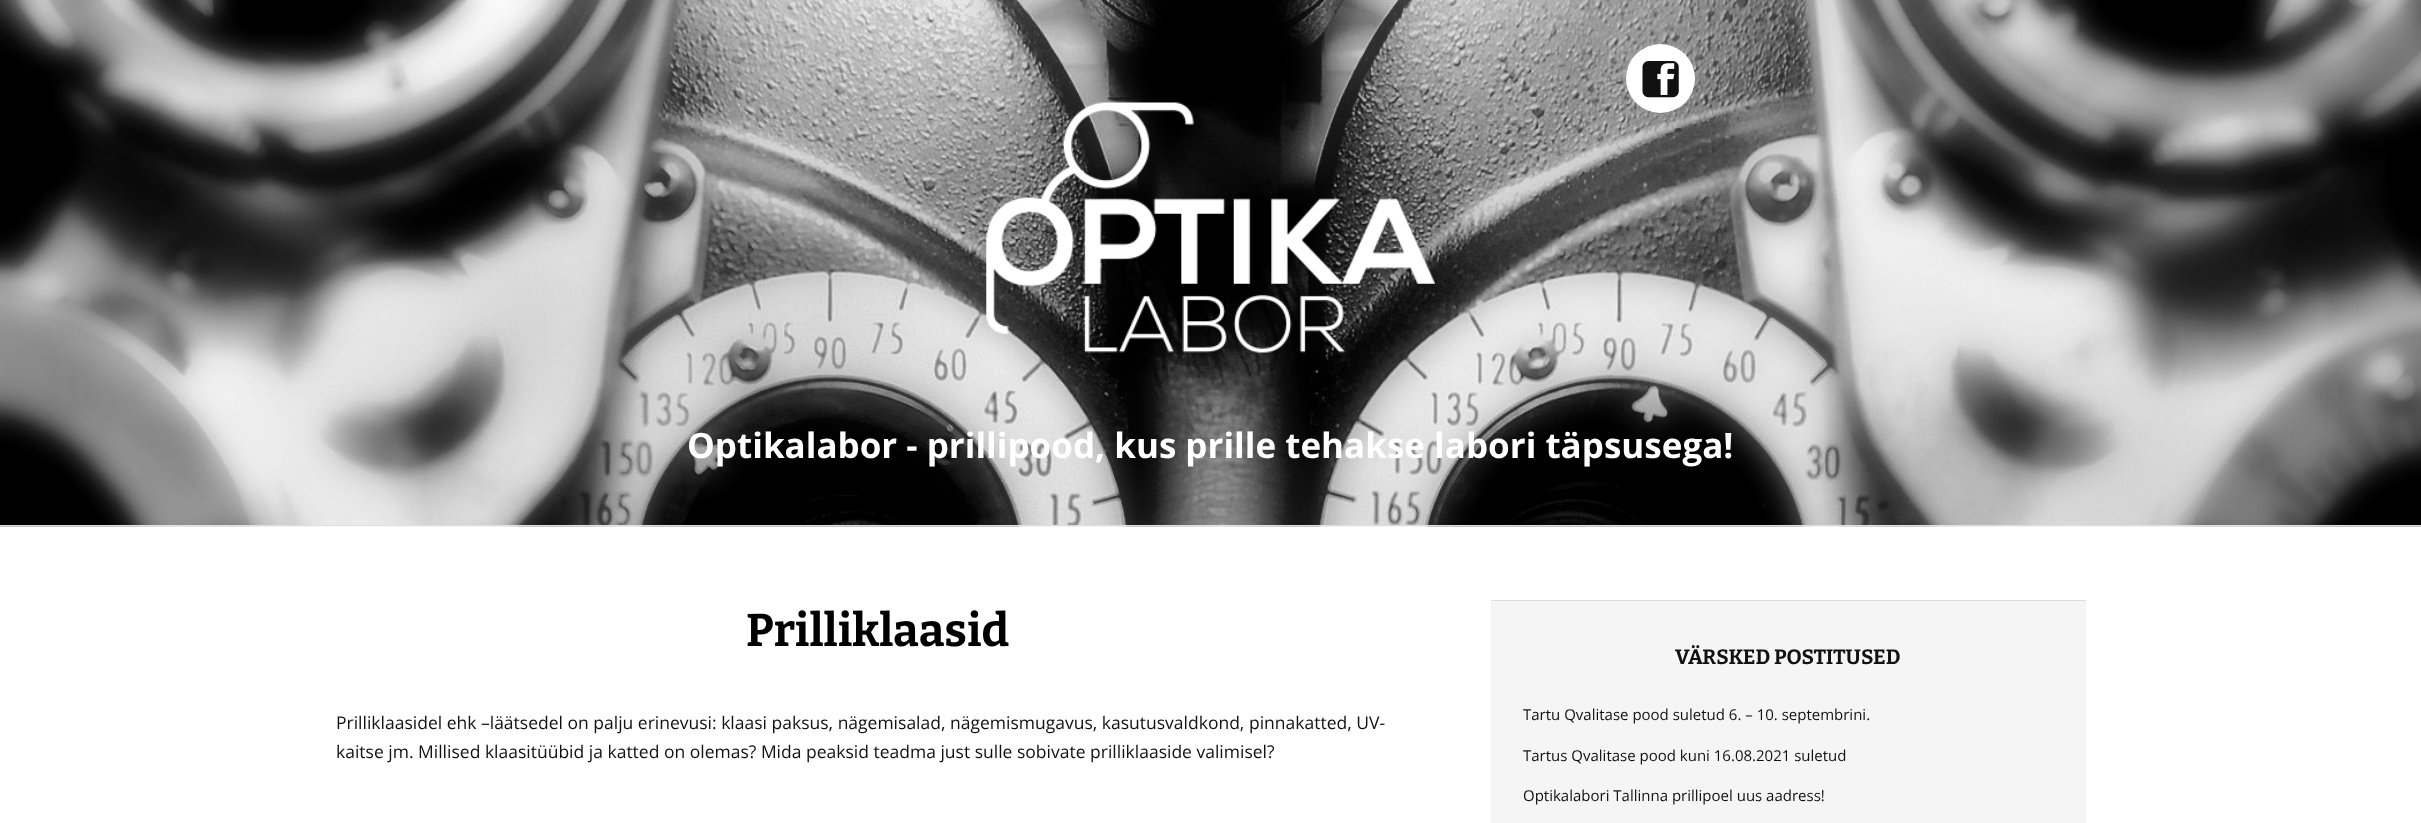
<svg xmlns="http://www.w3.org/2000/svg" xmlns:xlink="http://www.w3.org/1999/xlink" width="2421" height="823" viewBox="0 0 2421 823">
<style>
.cls-1{font:bold 35px Open Sans;fill:#ffffff}
.cls-2{font:bold 45.75px Bitter;fill:#000000}
.cls-3{font:17.5px Open Sans;fill:#111111}
.cls-4{font:bold 20.75px Bitter;fill:#111111}
.cls-5{font:15px Open Sans;fill:#111111}
</style>
<rect width="100%" height="100%" fill="#ffffff"/>
<image xlink:href="image0.png" x="0" y="0" width="2421" height="527"/>
<rect fill="#dedede" x="0" y="525" width="2421" height="1"/>
<circle fill="#ffffff" cx="1660.5" cy="78.5" r="34.5"/>
<image xlink:href="image1.png" x="1642" y="61" width="37" height="37"/>
<image xlink:href="image2.png" x="986" y="102" width="449" height="251"/>
<rect fill="#dedede" x="1491" y="600" width="595" height="1"/>
<rect fill="#f5f5f5" x="1491" y="601" width="595" height="222"/>
<text class="cls-1" x="687" y="458">Optikalabor - prillipood, kus prille tehakse labori täpsusega!</text>
<text class="cls-2" x="746" y="646">Prilliklaasid</text>
<text class="cls-3"><tspan x="336" y="729">Prilliklaasidel ehk –läätsedel on palju erinevusi: klaasi paksus, nägemisalad, nägemismugavus, kasutusvaldkond, pinnakatted, UV-</tspan><tspan x="336" y="758">kaitse jm. Millised klaasitüübid ja katted on olemas? Mida peaksid teadma just sulle sobivate prilliklaaside valimisel?</tspan></text>
<text class="cls-4" x="1675" y="664">VÄRSKED POSTITUSED</text>
<text class="cls-5" x="1523" y="720">Tartu Qvalitase pood suletud 6. – 10. septembrini.</text>
<text class="cls-5" x="1523" y="761">Tartus Qvalitase pood kuni 16.08.2021 suletud</text>
<text class="cls-5" x="1523" y="801">Optikalabori Tallinna prillipoel uus aadress!</text>
</svg>
